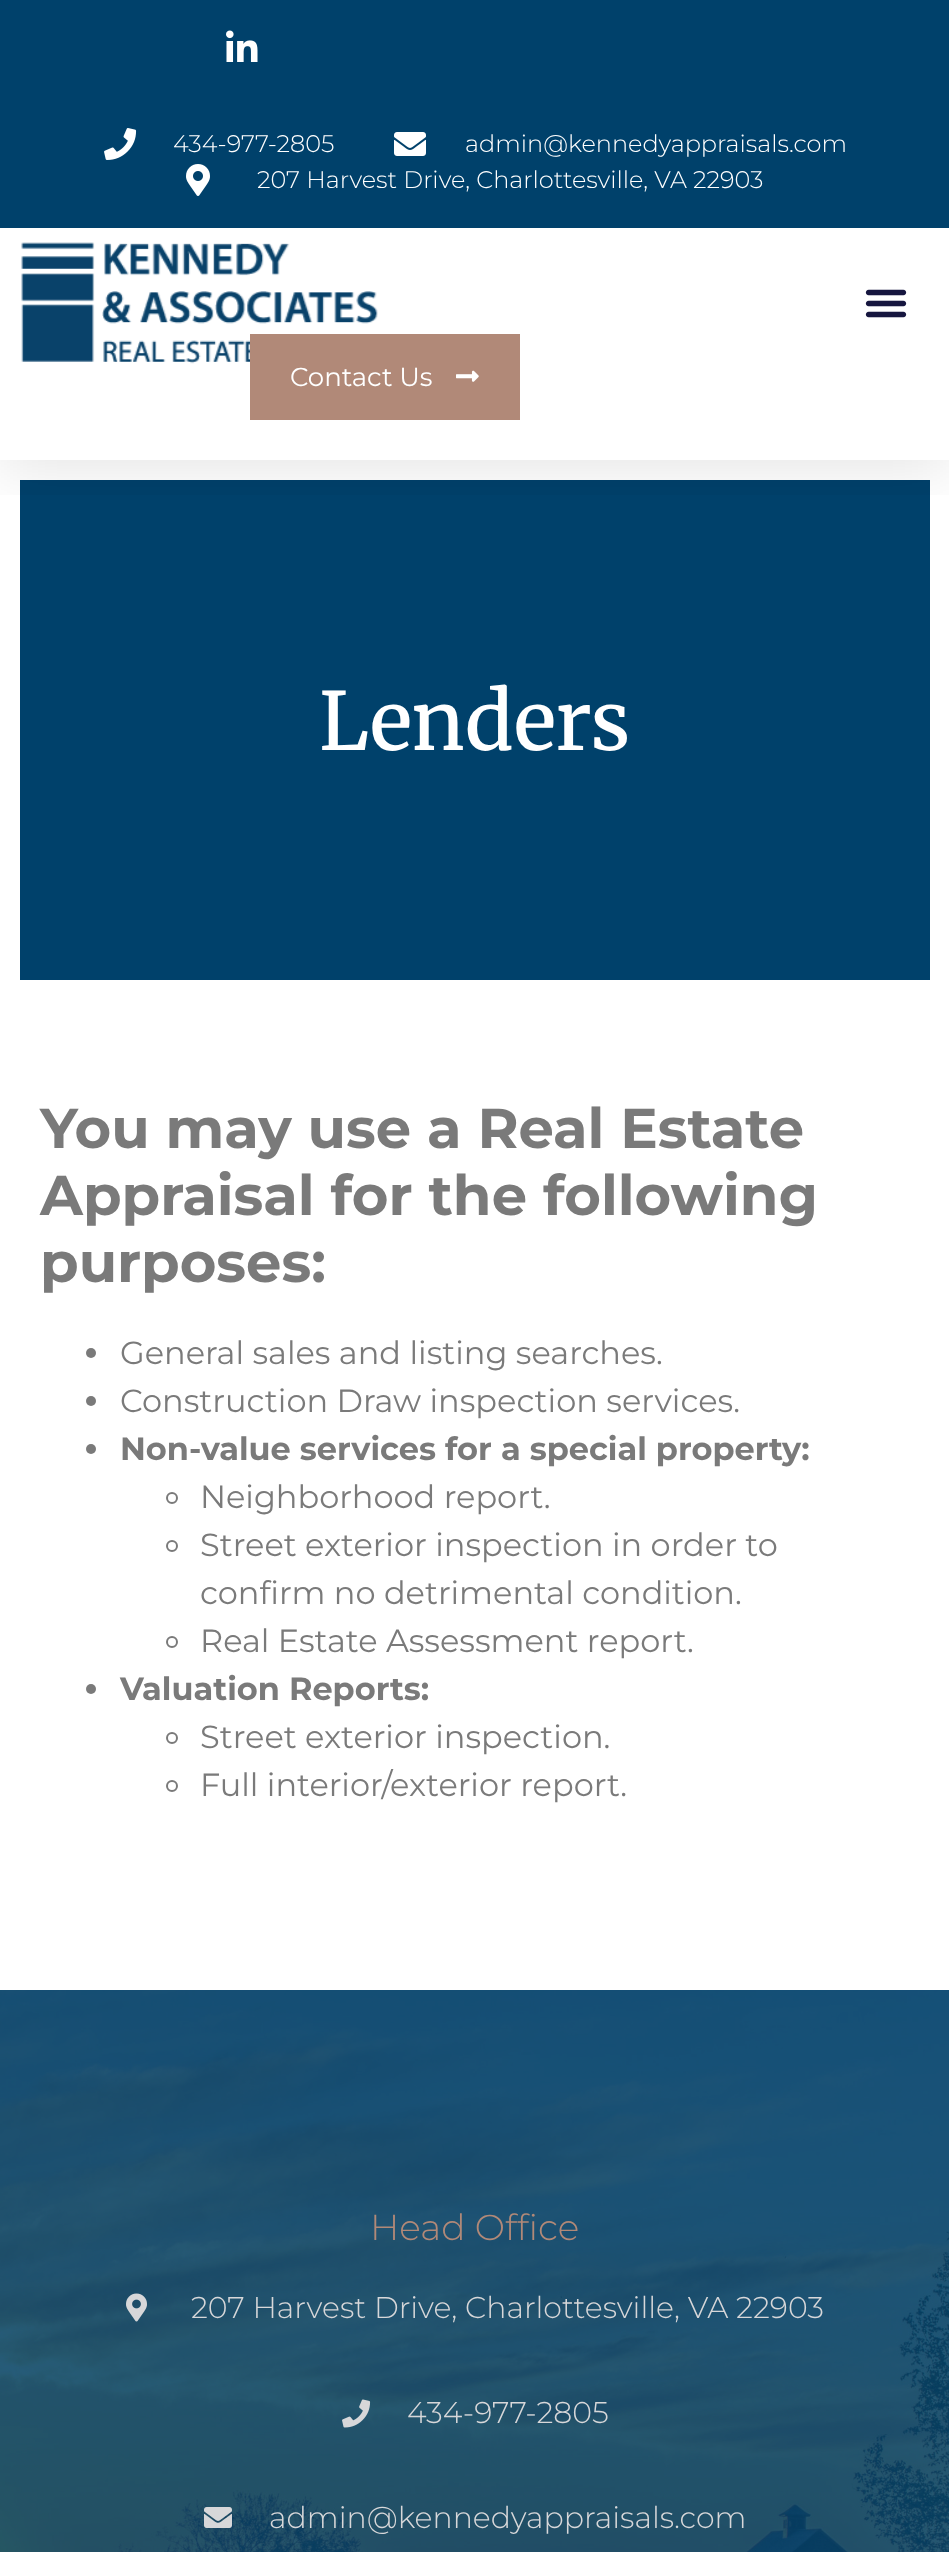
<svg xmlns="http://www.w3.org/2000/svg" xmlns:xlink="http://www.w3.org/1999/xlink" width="949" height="2552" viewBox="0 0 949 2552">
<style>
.cls-1{font:300 24px Montserrat;fill:#ffffff}
.cls-2{font:26px Montserrat;fill:#ffffff}
.cls-3{font:500 80px Merriweather;fill:#ffffff}
.cls-4{font:bold 56px Montserrat;fill:#7a7a7a}
.cls-5{font:32px Montserrat;fill:#7a7a7a}
.cls-6{font:bold 32px Montserrat;fill:#7a7a7a}
.cls-7{font:300 36px Montserrat;fill:#b18978}
.cls-8{font:300 30px Montserrat;fill:#d7d7d9}
</style>
<defs>
<clipPath id="clip1"><rect x="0" y="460" width="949" height="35"/></clipPath>
</defs>
<rect width="100%" height="100%" fill="#ffffff"/>
<rect fill="#00416b" x="20" y="480" width="910" height="500"/>
<g clip-path="url(#clip1)">
<rect fill="#000000" fill-opacity="0.1" filter="blur(30px)" x="0" y="10" width="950" height="460"/>
</g>
<rect fill="#00416b" x="0" y="0" width="949" height="228"/>
<image xlink:href="image0.png" x="226" y="30" width="32" height="32"/>
<image xlink:href="image1.png" x="104" y="128" width="33" height="32"/>
<image xlink:href="image2.png" x="394" y="132" width="32" height="24"/>
<image xlink:href="image3.png" x="186" y="164" width="24" height="32"/>
<image xlink:href="image4.png" x="21" y="242" width="357" height="122"/>
<image xlink:href="image5.png" x="865" y="289" width="42" height="29"/>
<rect fill="#b18978" x="250" y="334" width="270" height="86"/>
<image xlink:href="image6.png" x="456" y="370" width="23" height="12"/>
<circle fill="#7a7a7a" cx="91" cy="1353" r="5"/>
<circle fill="#7a7a7a" cx="91" cy="1401" r="5"/>
<circle fill="#7a7a7a" cx="91" cy="1449" r="5"/>
<circle fill="none" stroke="#7a7a7a" stroke-width="2" cx="172" cy="1498" r="5"/>
<circle fill="none" stroke="#7a7a7a" stroke-width="2" cx="172" cy="1546" r="5"/>
<circle fill="none" stroke="#7a7a7a" stroke-width="2" cx="172" cy="1642" r="5"/>
<circle fill="#7a7a7a" cx="91" cy="1689" r="5"/>
<circle fill="none" stroke="#7a7a7a" stroke-width="2" cx="172" cy="1738" r="5"/>
<circle fill="none" stroke="#7a7a7a" stroke-width="2" cx="172" cy="1786" r="5"/>
<image xlink:href="image7.png" x="0" y="1990" width="949" height="562"/>
<image xlink:href="image8.png" x="126" y="2293" width="21" height="29"/>
<image xlink:href="image9.png" x="342" y="2399" width="29" height="29"/>
<image xlink:href="image10.png" x="204" y="2507" width="28" height="21"/>
<text class="cls-1" x="173" y="152">434-977-2805</text>
<text class="cls-1" x="465" y="152">admin@kennedyappraisals.com</text>
<text class="cls-1" x="257" y="188">207 Harvest Drive, Charlottesville, VA 22903</text>
<text class="cls-2" x="290" y="386">Contact Us</text>
<text class="cls-3" x="319" y="750">Lenders</text>
<text class="cls-4"><tspan x="40" y="1148">You may use a Real Estate</tspan><tspan x="40" y="1215">Appraisal for the following</tspan><tspan x="40" y="1282">purposes:</tspan></text>
<text class="cls-5"><tspan x="120" y="1364">General sales and listing searches.</tspan><tspan x="120" y="1412">Construction Draw inspection services.</tspan></text>
<text class="cls-6" x="120" y="1460">Non-value services for a special property:</text>
<text class="cls-5"><tspan x="200" y="1508">Neighborhood report.</tspan><tspan x="200" y="1556">Street exterior inspection in order to</tspan><tspan x="200" y="1604">confirm no detrimental condition.</tspan><tspan x="200" y="1652">Real Estate Assessment report.</tspan></text>
<text class="cls-6" x="120" y="1700">Valuation Reports:</text>
<text class="cls-5"><tspan x="200" y="1748">Street exterior inspection.</tspan><tspan x="200" y="1796">Full interior/exterior report.</tspan></text>
<text class="cls-7" x="370" y="2240">Head Office</text>
<text class="cls-8" x="191" y="2318">207 Harvest Drive, Charlottesville, VA 22903</text>
<text class="cls-8" x="407" y="2423">434-977-2805</text>
<text class="cls-8" x="269" y="2528">admin@kennedyappraisals.com</text>
</svg>
